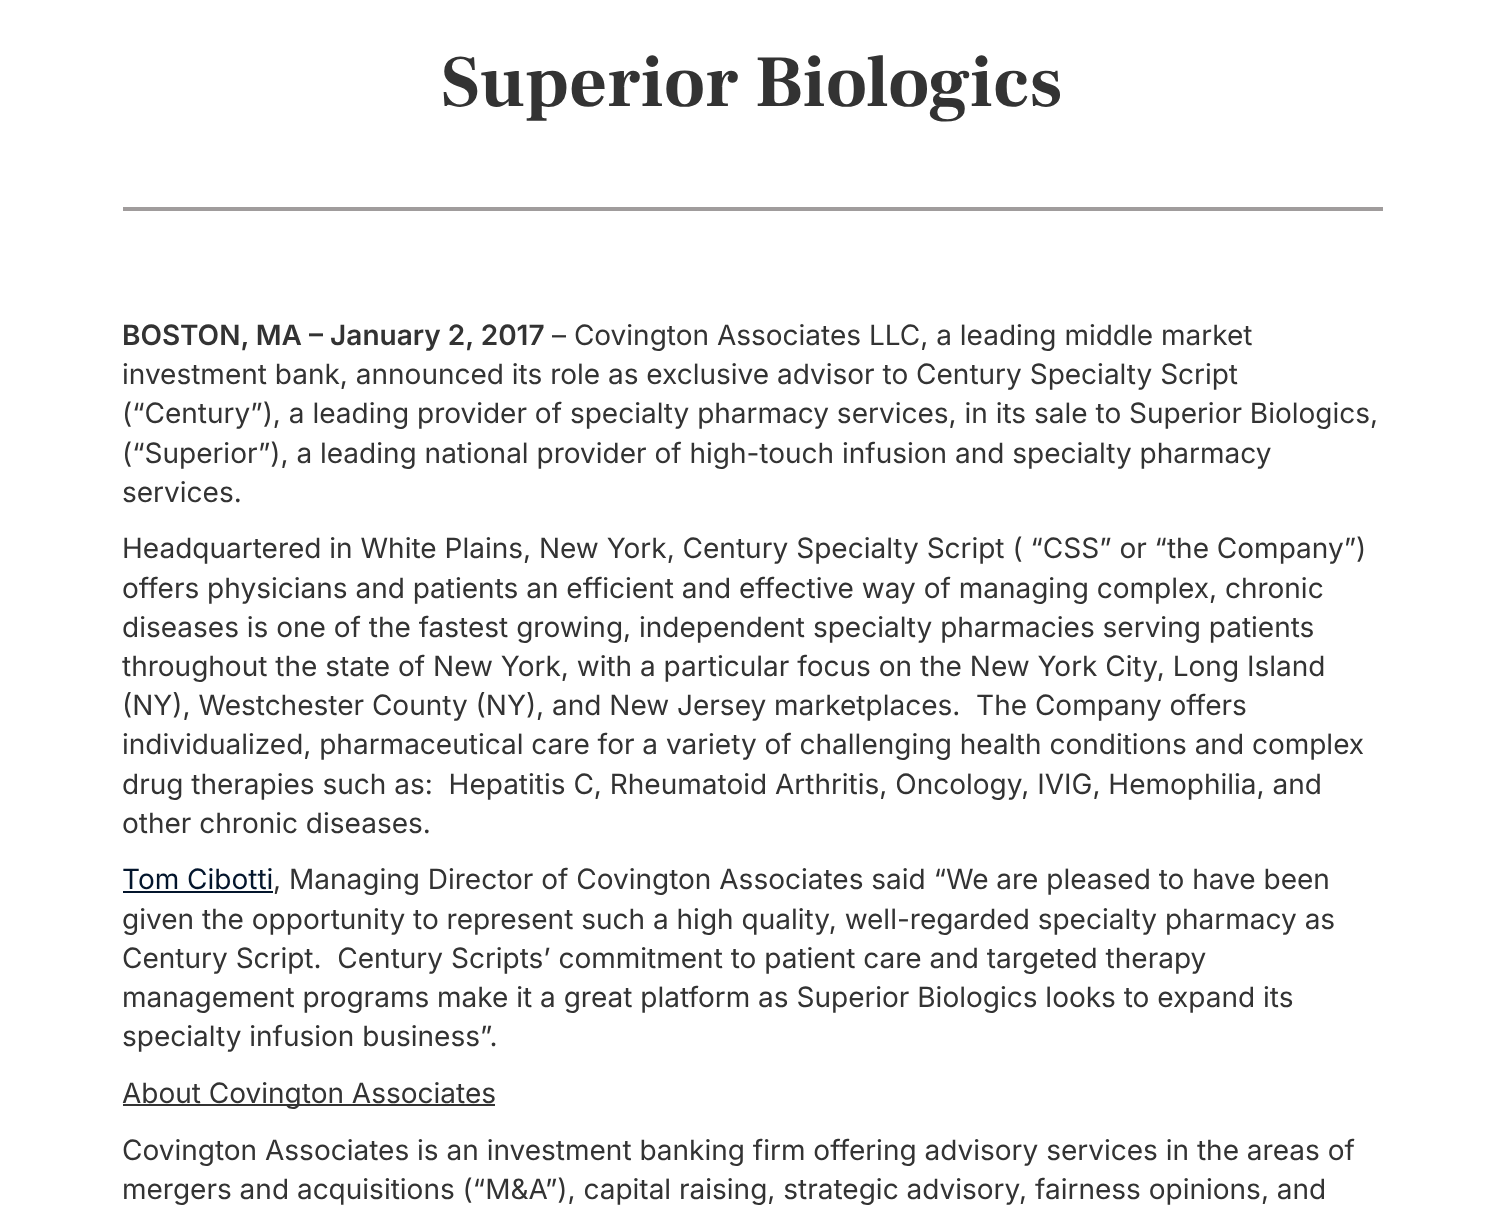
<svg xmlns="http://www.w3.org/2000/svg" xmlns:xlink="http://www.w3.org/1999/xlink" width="1502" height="1215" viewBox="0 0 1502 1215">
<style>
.cls-1{font:bold 73.5px Frank Ruhl Libre;fill:#333333}
.cls-2{font:600 28px Inter;fill:#333333}
.cls-3{font:28px Inter;fill:#333333}
.cls-4{font:28px Inter;fill:#03152c}
</style>
<rect width="100%" height="100%" fill="#ffffff"/>
<rect fill="#a09c9c" x="123" y="207" width="1260" height="4"/>
<rect fill="#03152c" x="123" y="891" width="150" height="2"/>
<rect fill="#333333" x="123" y="1104" width="372" height="2"/>
<text class="cls-1" x="441" y="106">Superior Biologics</text>
<text class="cls-2" x="122" y="345">BOSTON, MA – January 2, 2017</text>
<text class="cls-3" x="552" y="345">– Covington Associates LLC, a leading middle market</text>
<text class="cls-3"><tspan x="122" y="384">investment bank, announced its role as exclusive advisor to Century Specialty Script</tspan><tspan x="122" y="423">(“Century”), a leading provider of specialty pharmacy services, in its sale to Superior Biologics,</tspan><tspan x="122" y="463">(“Superior”), a leading national provider of high-touch infusion and specialty pharmacy</tspan><tspan x="122" y="502">services.</tspan></text>
<text class="cls-3" xml:space="preserve"><tspan x="122" y="558">Headquartered in White Plains, New York, Century Specialty Script ( “CSS” or “the Company”)</tspan><tspan x="122" y="598">offers physicians and patients an efficient and effective way of managing complex, chronic</tspan><tspan x="122" y="637">diseases is one of the fastest growing, independent specialty pharmacies serving patients</tspan><tspan x="122" y="676">throughout the state of New York, with a particular focus on the New York City, Long Island</tspan><tspan x="122" y="715">(NY), Westchester County (NY), and New Jersey marketplaces.  The Company offers</tspan><tspan x="122" y="754">individualized, pharmaceutical care for a variety of challenging health conditions and complex</tspan><tspan x="122" y="794">drug therapies such as:  Hepatitis C, Rheumatoid Arthritis, Oncology, IVIG, Hemophilia, and</tspan><tspan x="122" y="833">other chronic diseases.</tspan></text>
<text class="cls-4" x="122" y="889">Tom Cibotti</text>
<text class="cls-3" x="273" y="889">, Managing Director of Covington Associates said “We are pleased to have been</text>
<text class="cls-3" xml:space="preserve"><tspan x="122" y="929">given the opportunity to represent such a high quality, well-regarded specialty pharmacy as</tspan><tspan x="122" y="968">Century Script.  Century Scripts’ commitment to patient care and targeted therapy</tspan><tspan x="122" y="1007">management programs make it a great platform as Superior Biologics looks to expand its</tspan><tspan x="122" y="1046">specialty infusion business”.</tspan></text>
<text class="cls-3" x="122" y="1103">About Covington Associates</text>
<text class="cls-3"><tspan x="122" y="1160">Covington Associates is an investment banking firm offering advisory services in the areas of</tspan><tspan x="122" y="1199">mergers and acquisitions (“M&amp;A”), capital raising, strategic advisory, fairness opinions, and</tspan></text>
</svg>
